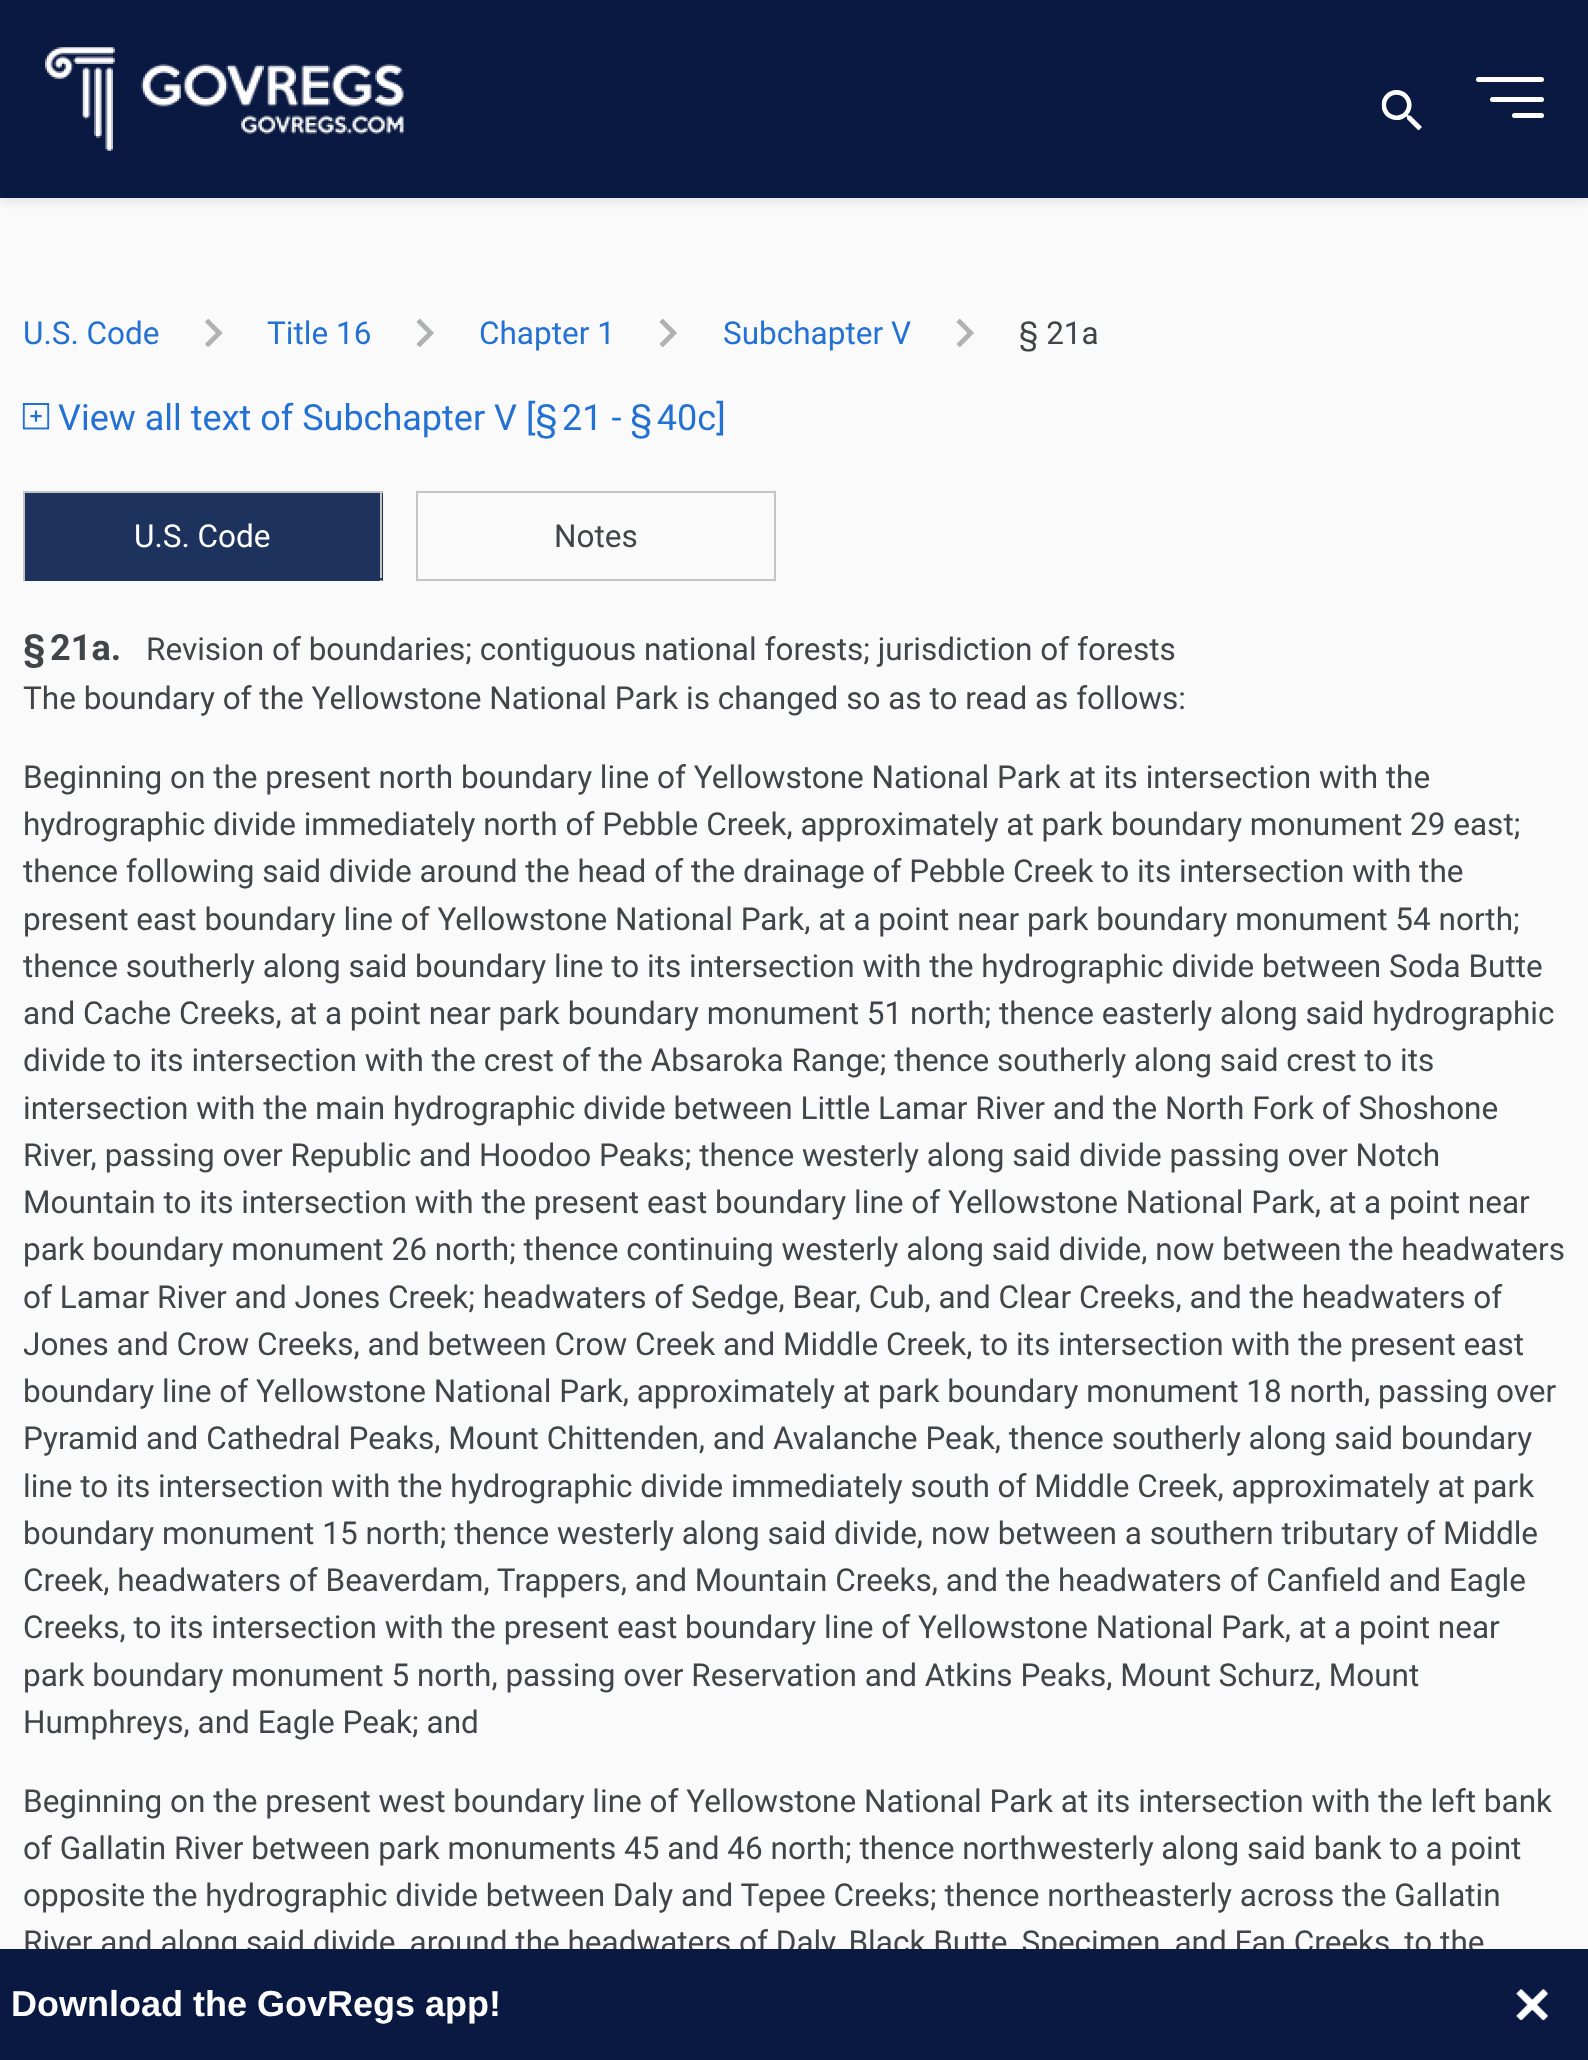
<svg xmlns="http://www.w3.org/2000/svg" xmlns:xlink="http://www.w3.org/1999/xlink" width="1588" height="2060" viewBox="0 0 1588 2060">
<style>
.cls-1{font:31.5px Roboto;fill:#2371d4}
.cls-2{font:31.5px Roboto;fill:#414549}
.cls-3{font:36px Roboto;fill:#2371d4}
.cls-4{font:31.5px Roboto;fill:#ffffff}
.cls-5{font:bold 36px Roboto;fill:#414549}
.cls-6{font:bold 36px Liberation Sans;fill:#ffffff}
</style>
<rect width="100%" height="100%" fill="#fafafa"/>
<rect fill="#d7d7d7" fill-opacity="0.5" filter="blur(4.5px)" x="0" y="5" width="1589" height="198"/>
<rect fill="#091942" x="0" y="0" width="1588" height="198"/>
<image xlink:href="image0.png" x="45" y="47" width="359" height="104"/>
<image xlink:href="image1.png" x="1381" y="90" width="41" height="41"/>
<rect fill="#ffffff" x="1476" y="77" width="68" height="5" rx="2.5"/>
<rect fill="#ffffff" x="1490" y="97" width="54" height="5" rx="2.5"/>
<rect fill="#ffffff" x="1512" y="113" width="32" height="5" rx="2.5"/>
<image xlink:href="image2.png" x="205" y="319" width="18" height="28"/>
<image xlink:href="image3.png" x="416" y="318" width="18" height="29"/>
<image xlink:href="image3.png" x="659" y="318" width="18" height="29"/>
<image xlink:href="image3.png" x="956" y="318" width="18" height="29"/>
<image xlink:href="image4.png" x="22" y="403" width="28" height="27"/>
<rect fill="#1d325c" x="25" y="493" width="358" height="88"/>
<rect fill="#c5c5c5" x="23" y="491" width="360" height="2"/>
<rect fill="#c5c5c5" x="380" y="491" width="2" height="90"/>
<rect fill="#1d325c" x="23" y="578" width="360" height="2"/>
<rect fill="#c5c5c5" x="23" y="491" width="2" height="90"/>
<rect fill="none" stroke="#c5c5c5" stroke-width="2" x="417" y="492" width="358" height="88"/>
<text class="cls-1" x="23" y="344">U.S. Code</text>
<text class="cls-1" x="267" y="344">Title 16</text>
<text class="cls-1" x="479" y="344">Chapter 1</text>
<text class="cls-1" x="723" y="344">Subchapter V</text>
<text class="cls-2" x="1019" y="344">§ 21a</text>
<text class="cls-3" x="58" y="430">View all text of Subchapter V [§ 21 - § 40c]</text>
<text class="cls-4" x="134" y="547">U.S. Code</text>
<text class="cls-2" x="554" y="547">Notes</text>
<text class="cls-5" x="23" y="660">§ 21a.</text>
<text class="cls-2" x="146" y="660">Revision of boundaries; contiguous national forests; jurisdiction of forests</text>
<text class="cls-2" x="23" y="709">The boundary of the Yellowstone National Park is changed so as to read as follows:</text>
<text class="cls-2"><tspan x="23" y="788">Beginning on the present north boundary line of Yellowstone National Park at its intersection with the</tspan><tspan x="23" y="835">hydrographic divide immediately north of Pebble Creek, approximately at park boundary monument 29 east;</tspan><tspan x="23" y="882">thence following said divide around the head of the drainage of Pebble Creek to its intersection with the</tspan><tspan x="23" y="930">present east boundary line of Yellowstone National Park, at a point near park boundary monument 54 north;</tspan><tspan x="23" y="977">thence southerly along said boundary line to its intersection with the hydrographic divide between Soda Butte</tspan><tspan x="23" y="1024">and Cache Creeks, at a point near park boundary monument 51 north; thence easterly along said hydrographic</tspan><tspan x="23" y="1071">divide to its intersection with the crest of the Absaroka Range; thence southerly along said crest to its</tspan><tspan x="23" y="1119">intersection with the main hydrographic divide between Little Lamar River and the North Fork of Shoshone</tspan><tspan x="23" y="1166">River, passing over Republic and Hoodoo Peaks; thence westerly along said divide passing over Notch</tspan><tspan x="23" y="1213">Mountain to its intersection with the present east boundary line of Yellowstone National Park, at a point near</tspan><tspan x="23" y="1260">park boundary monument 26 north; thence continuing westerly along said divide, now between the headwaters</tspan><tspan x="23" y="1308">of Lamar River and Jones Creek; headwaters of Sedge, Bear, Cub, and Clear Creeks, and the headwaters of</tspan><tspan x="23" y="1355">Jones and Crow Creeks, and between Crow Creek and Middle Creek, to its intersection with the present east</tspan><tspan x="23" y="1402">boundary line of Yellowstone National Park, approximately at park boundary monument 18 north, passing over</tspan><tspan x="23" y="1449">Pyramid and Cathedral Peaks, Mount Chittenden, and Avalanche Peak, thence southerly along said boundary</tspan><tspan x="23" y="1497">line to its intersection with the hydrographic divide immediately south of Middle Creek, approximately at park</tspan><tspan x="23" y="1544">boundary monument 15 north; thence westerly along said divide, now between a southern tributary of Middle</tspan><tspan x="23" y="1591">Creek, headwaters of Beaverdam, Trappers, and Mountain Creeks, and the headwaters of Canfield and Eagle</tspan><tspan x="23" y="1638">Creeks, to its intersection with the present east boundary line of Yellowstone National Park, at a point near</tspan><tspan x="23" y="1686">park boundary monument 5 north, passing over Reservation and Atkins Peaks, Mount Schurz, Mount</tspan><tspan x="23" y="1733">Humphreys, and Eagle Peak; and</tspan></text>
<text class="cls-2"><tspan x="23" y="1812">Beginning on the present west boundary line of Yellowstone National Park at its intersection with the left bank</tspan><tspan x="23" y="1859">of Gallatin River between park monuments 45 and 46 north; thence northwesterly along said bank to a point</tspan><tspan x="23" y="1906">opposite the hydrographic divide between Daly and Tepee Creeks; thence northeasterly across the Gallatin</tspan><tspan x="23" y="1953">River and along said divide, around the headwaters of Daly, Black Butte, Specimen, and Fan Creeks, to the</tspan></text>
<rect fill="#091942" x="0" y="1949" width="1588" height="111"/>
<text class="cls-6" x="11" y="2016">Download the GovRegs app!</text>
<image xlink:href="image5.png" x="1516" y="1989" width="33" height="32"/>
</svg>
